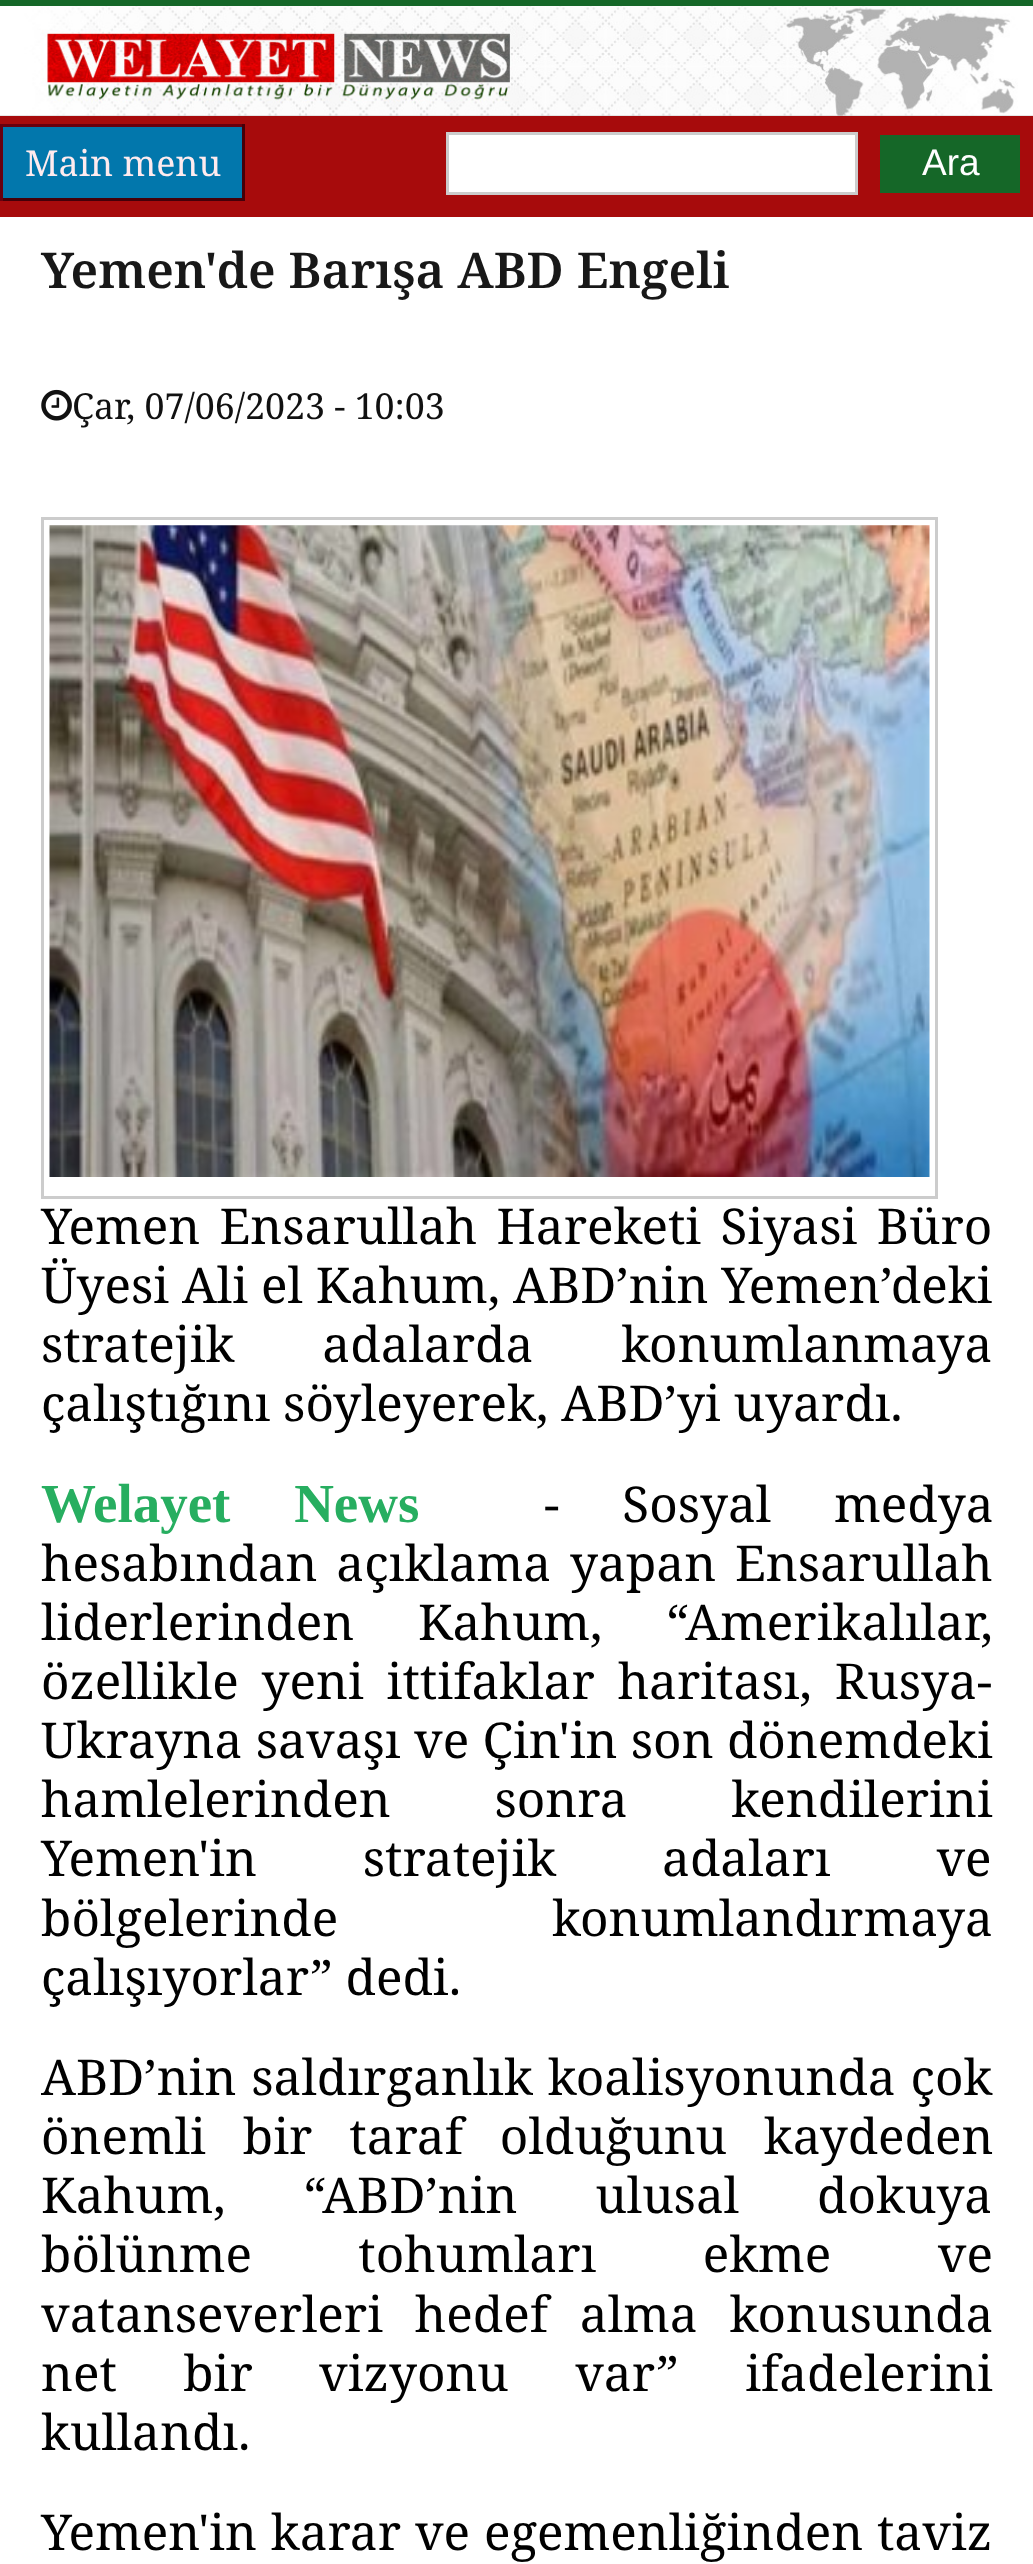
<svg xmlns="http://www.w3.org/2000/svg" xmlns:xlink="http://www.w3.org/1999/xlink" width="1033" height="2564" viewBox="0 0 1033 2564">
<style>
.cls-1{font:35.75px Noto Serif;fill:#ffebee}
.cls-2{font:37px Liberation Sans;fill:#ffffff}
.cls-3{font:600 49.5px Noto Serif;fill:#181818}
.cls-4{font:35.75px Noto Serif;fill:#111111}
.cls-5{font:49.5px Noto Serif;fill:#000000}
.cls-6{font:bold 55px Liberation Serif;fill:#27ae60}
</style>
<rect width="100%" height="100%" fill="#cfcfcf"/>
<rect fill="#156728" x="0" y="0" width="1033" height="6"/>
<image xlink:href="image0.png" x="0" y="6" width="1033" height="110"/>
<rect fill="#a70b0c" x="0" y="116" width="1033" height="101"/>
<rect fill="#0277ac" x="3" y="127" width="239" height="71"/>
<rect fill="#68000e" x="0" y="124" width="245" height="3"/>
<rect fill="#450009" x="242" y="124" width="3" height="77"/>
<rect fill="#450009" x="0" y="198" width="245" height="3"/>
<rect fill="#68000e" x="0" y="124" width="3" height="77"/>
<rect fill="#ffffff" stroke="#cccccc" stroke-width="3" x="447.5" y="133.5" width="409" height="60"/>
<rect fill="#156728" x="880" y="135" width="140" height="58"/>
<rect fill="#ffffff" x="0" y="217" width="1033" height="2347"/>
<image xlink:href="image1.png" x="41" y="389" width="31" height="32"/>
<rect fill="none" stroke="#cccccc" stroke-width="3" x="42.5" y="518.5" width="894" height="679"/>
<image xlink:href="image2.png" x="49" y="525" width="881" height="652"/>
<text class="cls-1" x="25" y="176">Main menu</text>
<text class="cls-2" x="922" y="175">Ara</text>
<text class="cls-3" x="41" y="288">Yemen'de Barışa ABD Engeli</text>
<text class="cls-4" x="72" y="419">Çar, 07/06/2023 - 10:03</text>
<text class="cls-5"><tspan x="41" y="1244" word-spacing="6.5">Yemen Ensarullah Hareketi Siyasi Büro</tspan><tspan x="41" y="1303">Üyesi Ali el Kahum, ABD’nin Yemen’deki</tspan><tspan x="41" y="1362" word-spacing="75">stratejik adalarda konumlanmaya</tspan><tspan x="41" y="1421">çalıştığını söyleyerek, ABD’yi uyardı.</tspan></text>
<text class="cls-6" x="41" y="1522" word-spacing="50">Welayet News</text>
<text class="cls-5" x="544" y="1522" word-spacing="50">- Sosyal medya</text>
<text class="cls-5"><tspan x="41" y="1581" word-spacing="6">hesabından açıklama yapan Ensarullah</tspan><tspan x="41" y="1640" word-spacing="51">liderlerinden Kahum, “Amerikalılar,</tspan><tspan x="41" y="1699" word-spacing="10">özellikle yeni ittifaklar haritası, Rusya-</tspan><tspan x="41" y="1758" word-spacing="0.5">Ukrayna savaşı ve Çin'in son dönemdeki</tspan><tspan x="41" y="1817" word-spacing="91">hamlelerinden sonra kendilerini</tspan><tspan x="41" y="1876" word-spacing="93">Yemen'in stratejik adaları ve</tspan><tspan x="41" y="1936" word-spacing="201">bölgelerinde konumlandırmaya</tspan><tspan x="41" y="1995">çalışıyorlar” dedi.</tspan></text>
<text class="cls-5"><tspan x="41" y="2095" word-spacing="2">ABD’nin saldırganlık koalisyonunda çok</tspan><tspan x="41" y="2154" word-spacing="24">önemli bir taraf olduğunu kaydeden</tspan><tspan x="41" y="2213" word-spacing="65">Kahum, “ABD’nin ulusal dokuya</tspan><tspan x="41" y="2272" word-spacing="93.5">bölünme tohumları ekme ve</tspan><tspan x="41" y="2332" word-spacing="19">vatanseverleri hedef alma konusunda</tspan><tspan x="41" y="2391" word-spacing="53.5">net bir vizyonu var” ifadelerini</tspan><tspan x="41" y="2450">kullandı.</tspan></text>
<text class="cls-5" x="41" y="2550" word-spacing="1">Yemen'in karar ve egemenliğinden taviz</text>
</svg>
